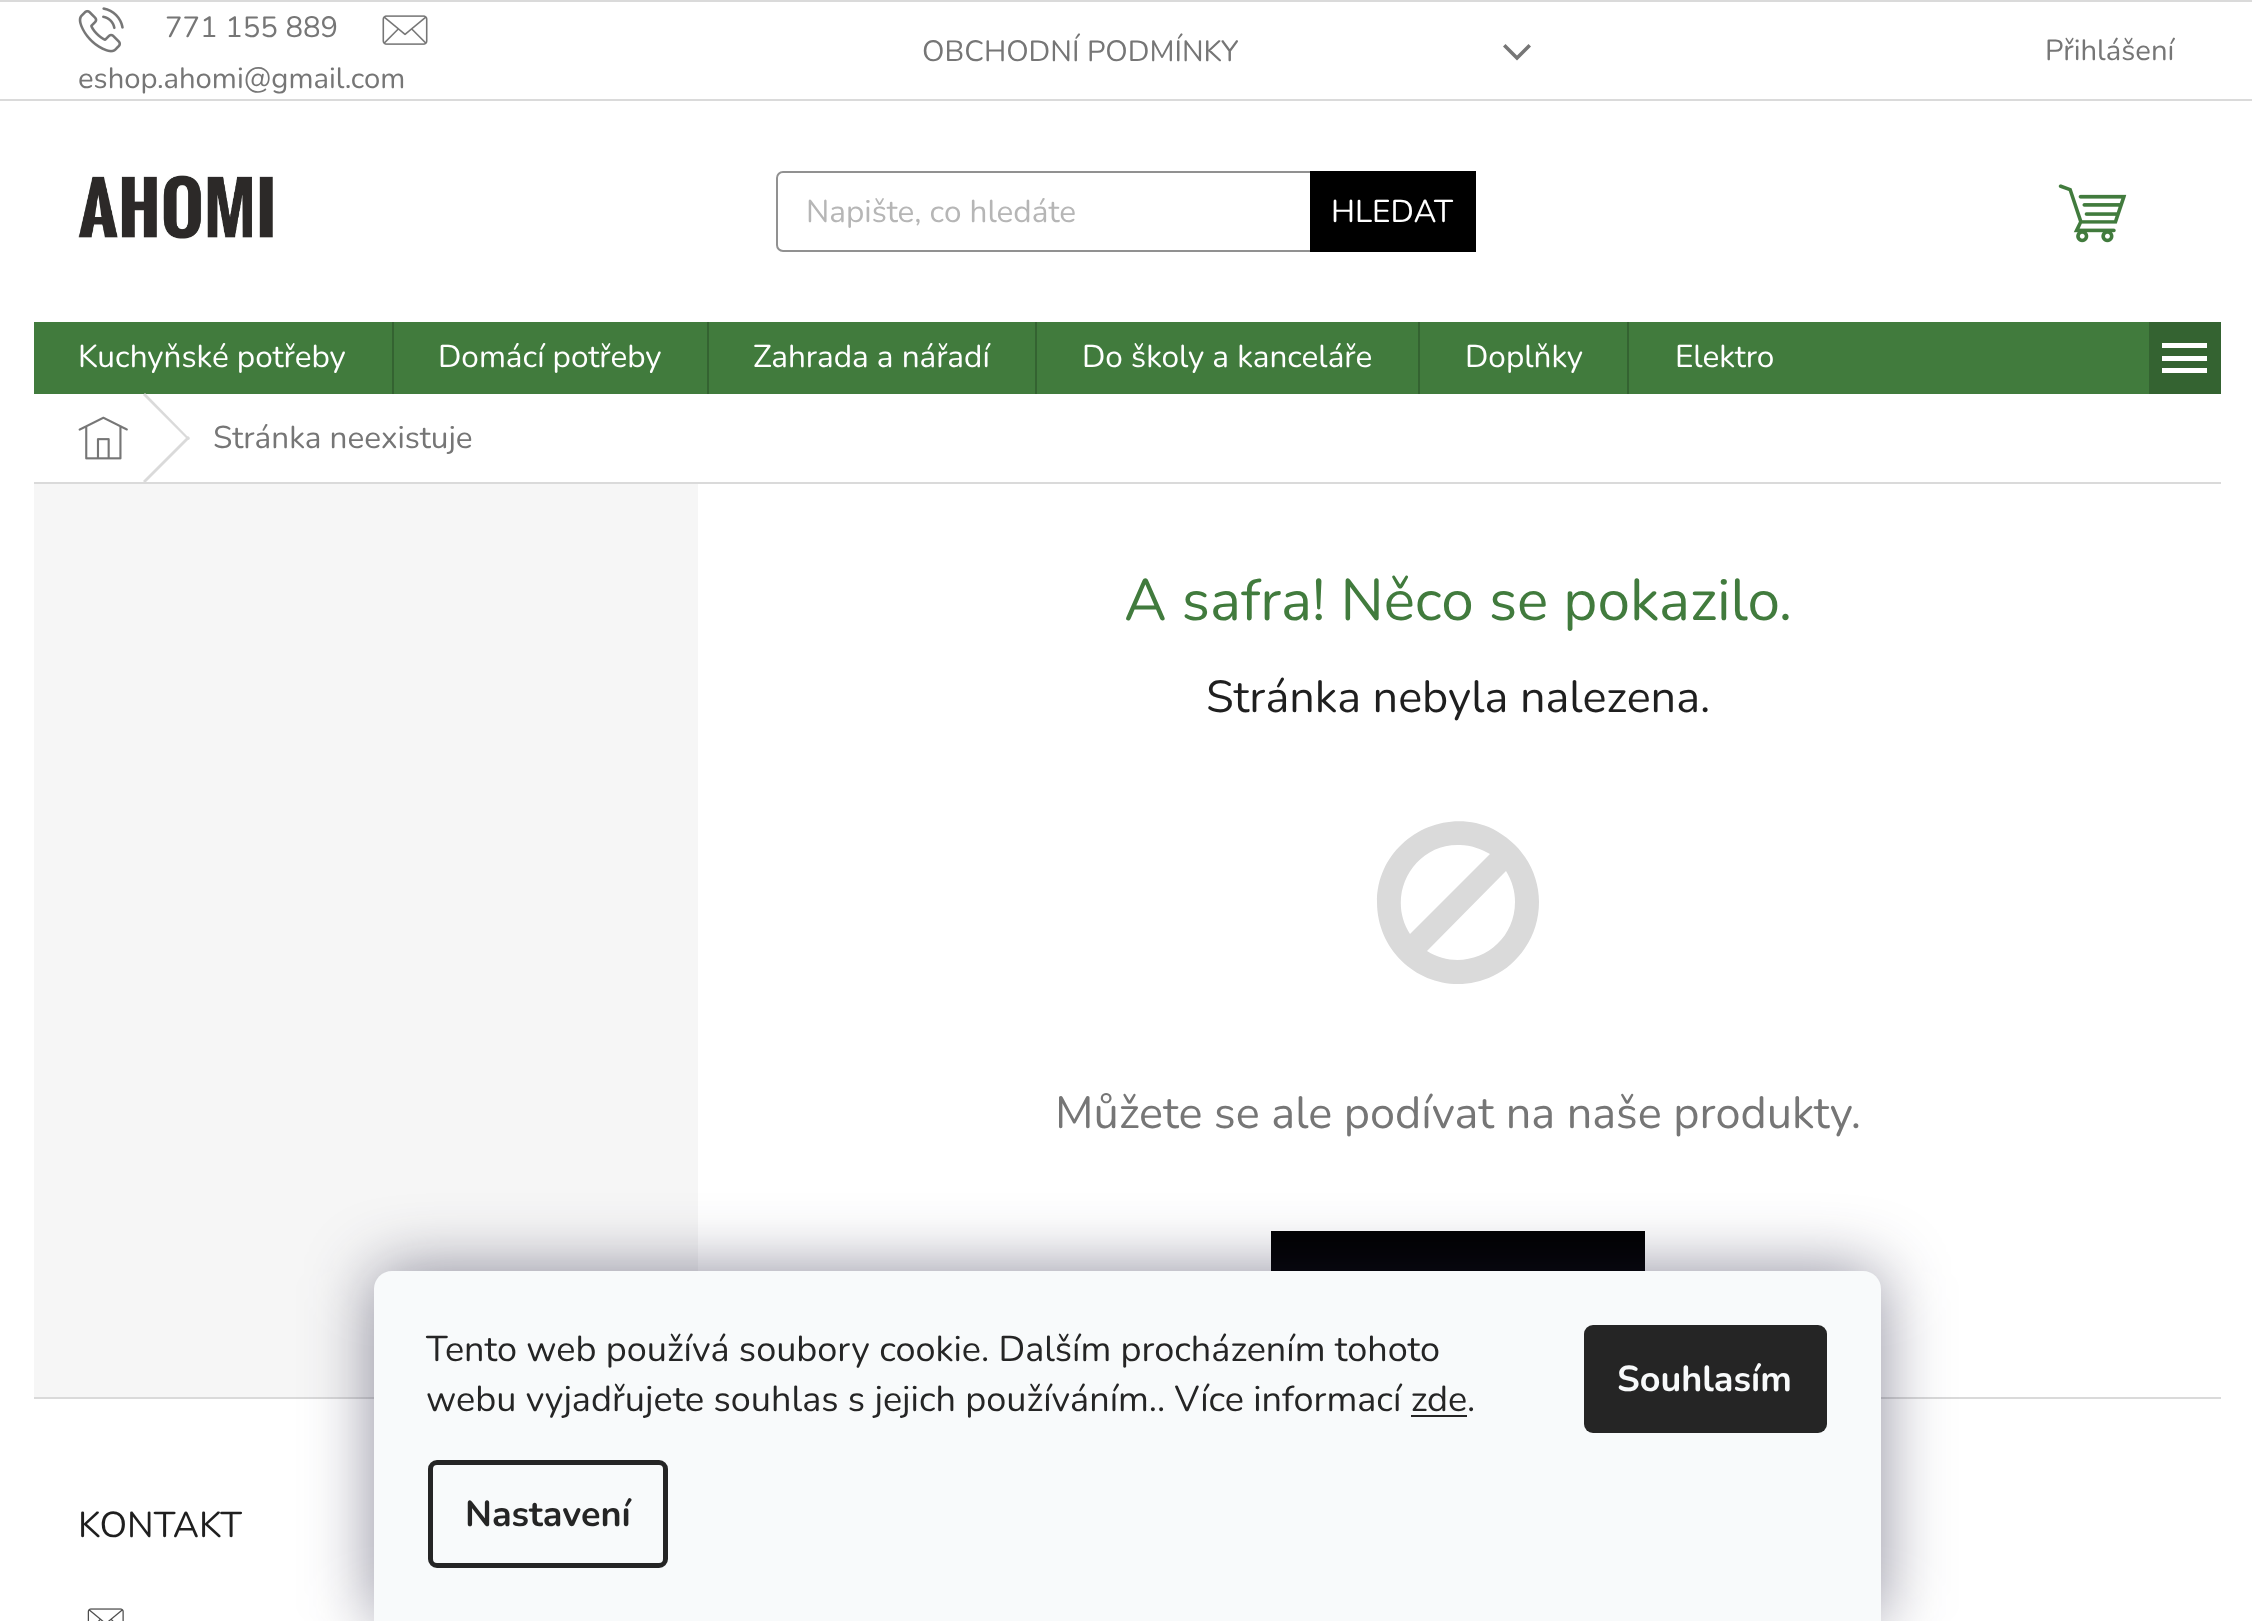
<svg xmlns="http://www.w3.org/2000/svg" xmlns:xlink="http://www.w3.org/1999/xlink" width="2252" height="1621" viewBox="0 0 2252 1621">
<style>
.cls-1{font:29.25px Nunito;fill:#767676}
.cls-2{font:31.5px Nunito;fill:#b6b6b6}
.cls-3{font:31.5px Nunito;fill:#ffffff}
.cls-4{font:31.5px Nunito;fill:#767676}
.cls-5{font:58.5px Nunito;fill:#417b3d}
.cls-6{font:45px Nunito;fill:#1f1f1f}
.cls-7{font:45px Nunito;fill:#767676}
.cls-8{font:36px Nunito;fill:#1f1f1f}
.cls-9{font:36px Nunito;fill:#252525}
.cls-10{font:bold 36px Nunito;fill:#252525}
.cls-11{font:bold 36px Nunito;fill:#f8fafb}
</style>
<rect width="100%" height="100%" fill="#ffffff"/>
<rect fill="#dadada" x="0" y="0" width="2252" height="2"/>
<rect fill="#dadada" x="0" y="99" width="2252" height="2"/>
<image xlink:href="image0.png" x="78" y="7" width="46" height="46"/>
<image xlink:href="image1.png" x="382" y="15" width="46" height="30"/>
<path fill="#767676" d="M1503 46.5L1505.5 44L1517 55.5L1528.5 44L1531 46.5L1517 60.5Z"/>
<image xlink:href="image2.png" x="78" y="175" width="195" height="64"/>
<rect fill="none" stroke="#919191" stroke-width="2" x="777" y="172" width="698" height="79" rx="6"/>
<rect fill="#000000" x="1310" y="171" width="166" height="81"/>
<image xlink:href="image3.png" x="2058" y="184" width="69" height="59"/>
<rect fill="#417b3d" x="34" y="322" width="2115" height="72"/>
<rect fill="#346331" x="392" y="322" width="2" height="72"/>
<rect fill="#346331" x="707" y="322" width="2" height="72"/>
<rect fill="#346331" x="1035" y="322" width="2" height="72"/>
<rect fill="#346331" x="1418" y="322" width="2" height="72"/>
<rect fill="#346331" x="1627" y="322" width="2" height="72"/>
<rect fill="#346331" x="2149" y="322" width="72" height="72"/>
<path fill="#ffffff" d="M2162 373H2207V368H2162ZM2162 361H2207V356H2162ZM2162 343V348H2207V343Z"/>
<rect fill="#dadada" x="34" y="482" width="2187" height="2"/>
<image xlink:href="image4.png" x="78" y="416" width="50" height="44"/>
<path fill="#dadada" d="M143 395L145 393L190 439L188 440Z"/>
<path fill="#dadada" d="M188 436L190 438L145 483L143 481Z"/>
<rect fill="#f6f6f6" x="34" y="484" width="664" height="913"/>
<path fill="#dadada" d="M1515 902C1515 891 1512 881 1506 871L1427 951C1465 975 1515 948 1515 902ZM1410 934L1490 854C1481 849 1471 845 1460 845C1414 843 1385 895 1410 934ZM1539 902C1539 919 1534 935 1525 948C1517 960 1506 970 1493 976C1439 1002 1377 962 1377 902C1377 843 1440 804 1493 829C1506 836 1517 845 1525 857C1534 870 1539 886 1539 902Z"/>
<rect fill="#000000" x="1271" y="1231" width="374" height="40"/>
<rect fill="#dadada" x="34" y="1397" width="2187" height="2"/>
<image xlink:href="image5.png" x="87" y="1608" width="37" height="13"/>
<rect fill="#1b1939" fill-opacity="0.5" filter="blur(34px)" x="374" y="1271" width="1507" height="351" rx="18"/>
<path fill="#f8fafb" d="M392 1271H1863C1873 1271 1881 1279 1881 1289V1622H374V1289C374 1279 382 1271 392 1271Z"/>
<rect fill="#252525" x="1411" y="1415" width="56" height="2"/>
<rect fill="none" stroke="#252525" stroke-width="5" x="430.5" y="1462.5" width="235" height="103" rx="6.5"/>
<rect fill="#252525" x="1584" y="1325" width="243" height="108" rx="9"/>
<text class="cls-1" x="165" y="37">771 155 889</text>
<text class="cls-1" x="78" y="88">eshop.ahomi@gmail.com</text>
<text class="cls-1" x="922" y="61">OBCHODNÍ PODMÍNKY</text>
<text class="cls-1" x="2045" y="60">Přihlášení</text>
<text class="cls-2" x="806" y="222">Napište, co hledáte</text>
<text class="cls-3" x="1331" y="222">HLEDAT</text>
<text class="cls-3" x="78" y="367">Kuchyňské potřeby</text>
<text class="cls-3" x="438" y="367">Domácí potřeby</text>
<text class="cls-3" x="753" y="367">Zahrada a nářadí</text>
<text class="cls-3" x="1082" y="367">Do školy a kanceláře</text>
<text class="cls-3" x="1465" y="367">Doplňky</text>
<text class="cls-3" x="1675" y="367">Elektro</text>
<text class="cls-4" x="213" y="448">Stránka neexistuje</text>
<text class="cls-5" x="1124" y="620">A safra! Něco se pokazilo.</text>
<text class="cls-6" x="1206" y="712">Stránka nebyla nalezena.</text>
<text class="cls-7" x="1055" y="1128">Můžete se ale podívat na naše produkty.</text>
<text class="cls-8" x="78" y="1537">KONTAKT</text>
<text class="cls-9"><tspan x="426" y="1361">Tento web používá soubory cookie. Dalším procházením tohoto</tspan><tspan x="426" y="1411">webu vyjadřujete souhlas s jejich používáním.. Více informací zde.</tspan></text>
<text class="cls-10" x="465" y="1526">Nastavení</text>
<text class="cls-11" x="1617" y="1391">Souhlasím</text>
</svg>
